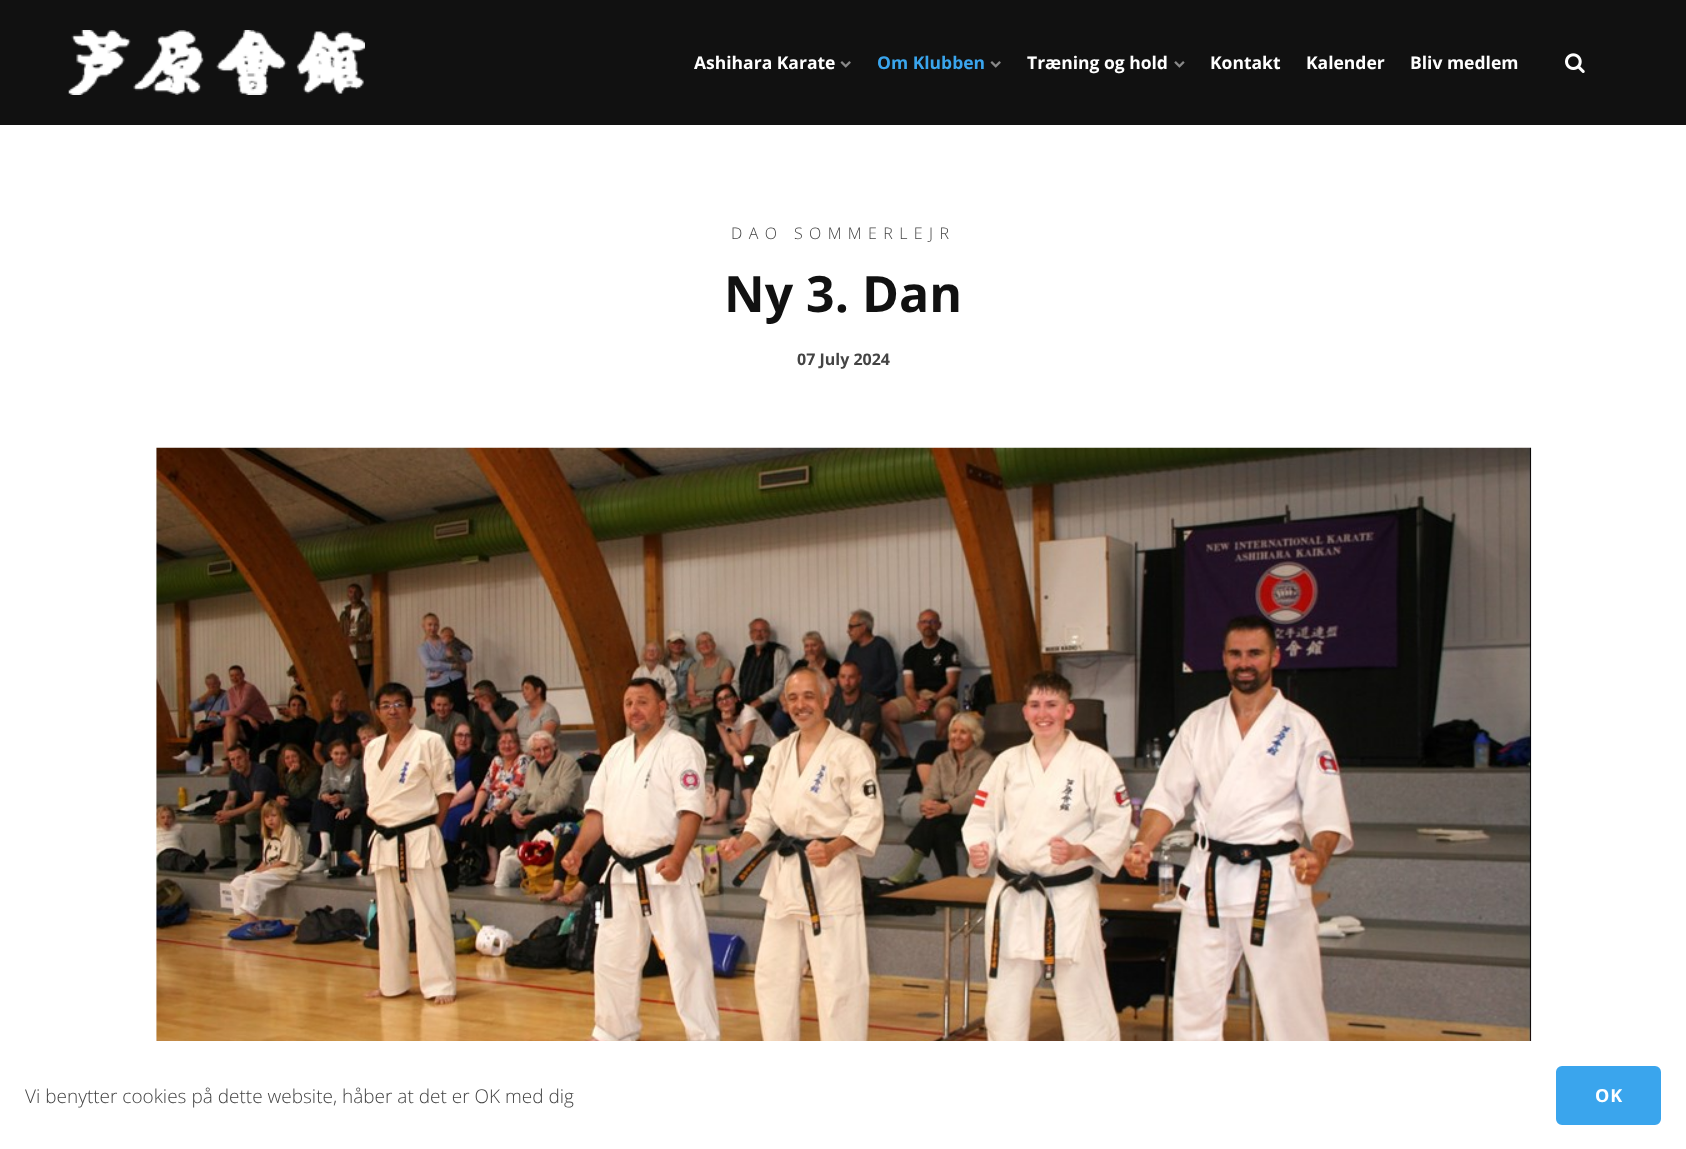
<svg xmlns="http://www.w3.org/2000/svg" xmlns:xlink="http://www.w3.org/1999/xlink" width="1686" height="1149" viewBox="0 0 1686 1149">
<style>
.cls-1{font:bold 17.5px Open Sans;fill:#ffffff}
.cls-2{font:bold 17.5px Open Sans;fill:#3aa5ed}
.cls-3{font:300 16px Open Sans;letter-spacing:6.4px;fill:#444444}
.cls-4{font:bold 50px Open Sans;fill:#111111}
.cls-5{font:bold 16px Open Sans;fill:#444444}
.cls-6{font:300 19px Open Sans;fill:#444444}
.cls-7{font:bold 18px Open Sans;letter-spacing:1px;fill:#ffffff}
</style>
<rect width="100%" height="100%" fill="#ffffff"/>
<rect fill="#111111" x="0" y="0" width="1686" height="125"/>
<image xlink:href="image0.png" x="68" y="30" width="297" height="65"/>
<image xlink:href="image1.png" x="840" y="61" width="11" height="7"/>
<image xlink:href="image1.png" x="990" y="61" width="11" height="7"/>
<image xlink:href="image2.png" x="1174" y="61" width="11" height="7"/>
<image xlink:href="image3.png" x="1565" y="53" width="20" height="20"/>
<image xlink:href="image4.png" x="156" y="447" width="1376" height="594"/>
<rect fill="#3aa5ed" stroke="#3aa5ed" stroke-width="3" x="1557.5" y="1067.5" width="102" height="56" rx="4.5"/>
<text class="cls-1" x="694" y="69">Ashihara Karate</text>
<text class="cls-2" x="877" y="69">Om Klubben</text>
<text class="cls-1" x="1027" y="69">Træning og hold</text>
<text class="cls-1" x="1210" y="69">Kontakt</text>
<text class="cls-1" x="1306" y="69">Kalender</text>
<text class="cls-1" x="1410" y="69">Bliv medlem</text>
<text class="cls-3" x="731" y="239">DAO SOMMERLEJR</text>
<text class="cls-4" x="724" y="312">Ny 3. Dan</text>
<text class="cls-5" x="797" y="365">07 July 2024</text>
<text class="cls-6" x="25" y="1103">Vi benytter cookies på dette website, håber at det er OK med dig</text>
<text class="cls-7" x="1595" y="1102">OK</text>
</svg>
